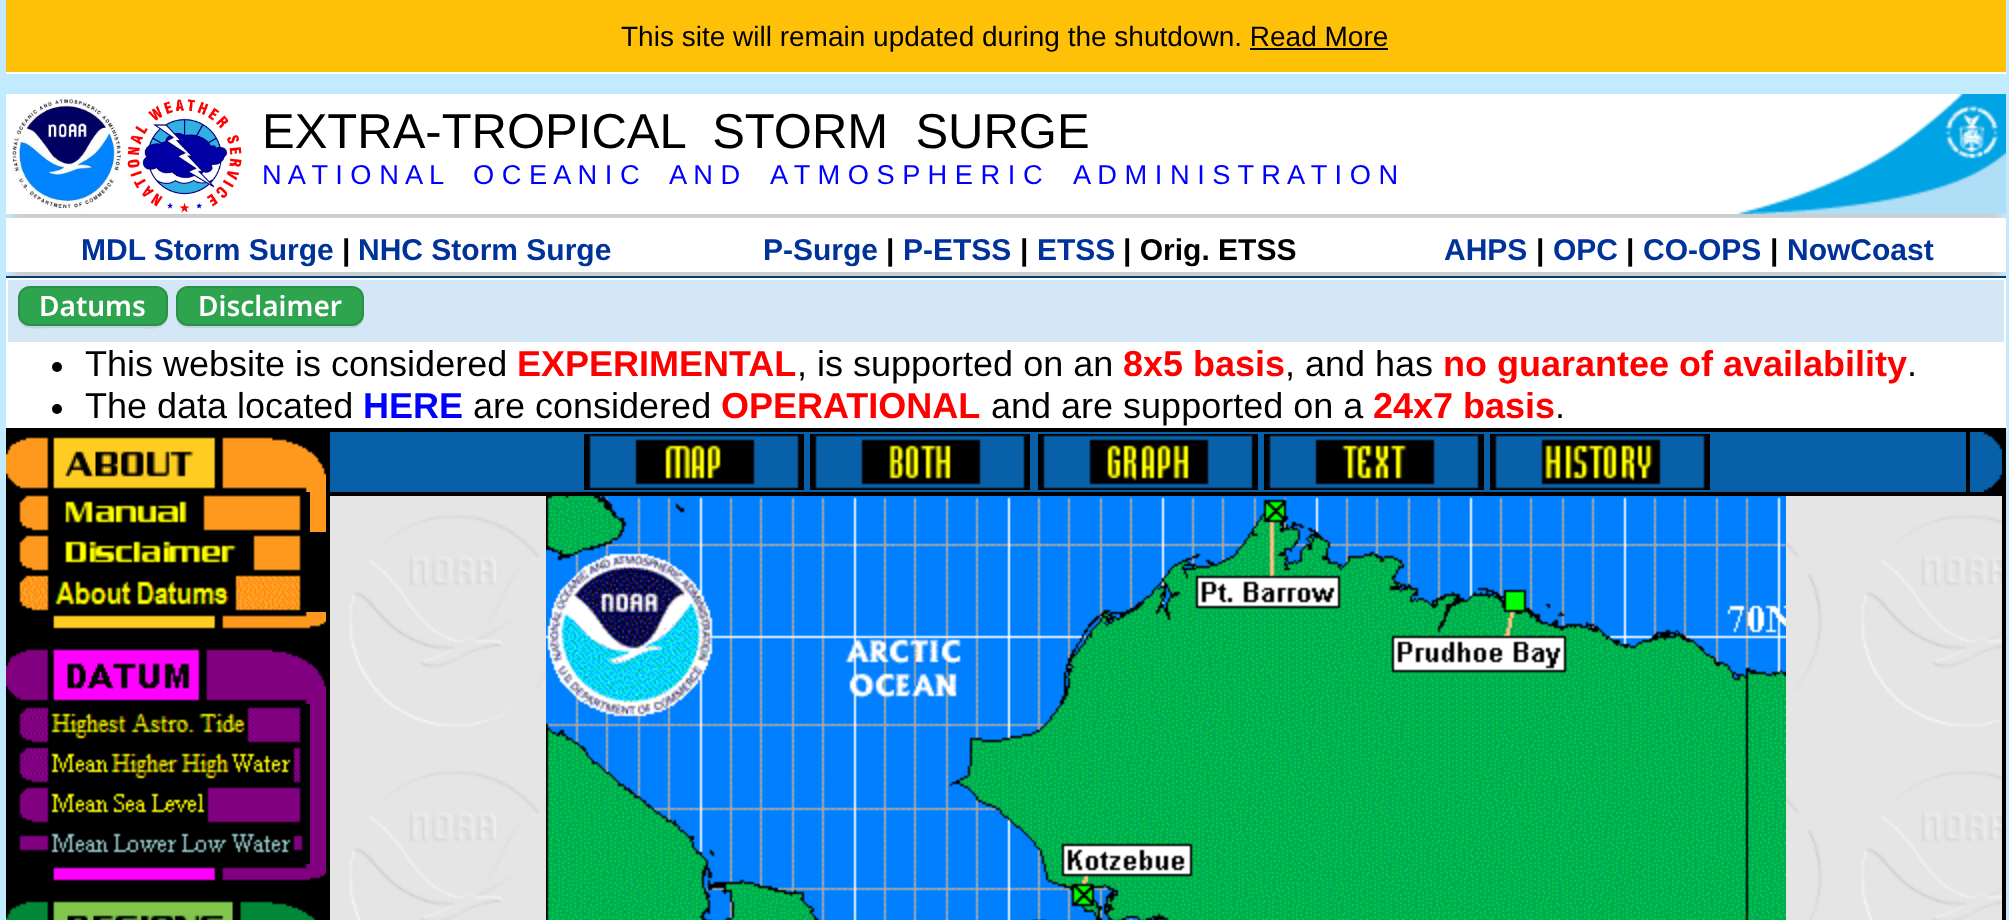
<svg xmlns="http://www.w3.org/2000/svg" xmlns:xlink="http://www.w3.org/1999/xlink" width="2009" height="920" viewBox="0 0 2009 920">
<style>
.cls-1{font:28px Liberation Sans;fill:#000000}
.cls-2{font:49px Liberation Sans;fill:#000000}
.cls-3{font:27.25px Liberation Sans;fill:#0000ff}
.cls-4{font:bold 30px Liberation Sans;fill:#003399}
.cls-5{font:bold 30px Liberation Sans;fill:#000000}
.cls-6{font:600 28px Noto Sans;fill:#ffffff}
.cls-7{font:36px Liberation Sans;fill:#000000}
.cls-8{font:bold 36px Liberation Sans;fill:#ff0000}
.cls-9{font:bold 36px Liberation Sans;fill:#0000ff}
</style>
<rect width="100%" height="100%" fill="#c3ebff"/>
<rect fill="#ffc107" x="6" y="0" width="2000" height="72"/>
<rect fill="#ffffff" x="6" y="72" width="2000" height="2"/>
<rect fill="#000000" x="1250" y="48" width="138" height="2"/>
<rect fill="#cccccc" filter="blur(5px)" x="12" y="114" width="1988" height="108"/>
<rect fill="#ffffff" x="6" y="94" width="1955" height="120"/>
<image xlink:href="image0.png" x="12" y="97" width="109" height="112"/>
<image xlink:href="image1.png" x="127" y="99" width="115" height="114"/>
<image xlink:href="image2.png" x="1736" y="94" width="270" height="120"/>
<rect fill="#cccccc" filter="blur(5px)" x="12" y="238" width="1988" height="42"/>
<rect fill="#ffffff" x="6" y="218" width="2000" height="54"/>
<rect fill="#033e6b" x="6" y="276" width="2000" height="2"/>
<rect fill="#d3e7f7" stroke="#ffffff" stroke-width="2" x="7" y="279" width="1998" height="64"/>
<path fill="#c1d3e2" d="M18 314C18 333 38 328 51 328H135C148 328 168 333 168 314C168 321 163 326 156 326H30C23 326 18 321 18 314Z"/>
<rect fill="#2ea44f" x="18" y="286" width="150" height="40" rx="12"/>
<rect fill="none" stroke="#1b1f23" stroke-opacity="0.15" stroke-width="2" x="19" y="287" width="148" height="38" rx="11"/>
<path fill="#c1d3e2" d="M176 314V316C176 323 181 328 188 328H352C359 328 364 323 364 316V314C364 321 359 326 352 326H188C181 326 176 321 176 314Z"/>
<rect fill="#2ea44f" x="176" y="286" width="188" height="40" rx="12"/>
<rect fill="none" stroke="#1b1f23" stroke-opacity="0.15" stroke-width="2" x="177" y="287" width="186" height="38" rx="11"/>
<rect fill="#ffffff" x="6" y="344" width="2000" height="84"/>
<circle fill="#000000" cx="57" cy="367" r="5"/>
<circle fill="#000000" cx="57" cy="409" r="5"/>
<rect fill="#000000" x="6" y="428" width="320" height="9"/>
<image xlink:href="image3.png" x="6" y="437" width="320" height="55"/>
<rect fill="#000000" x="6" y="492" width="304" height="40"/>
<image xlink:href="image4.png" x="19" y="495" width="282" height="36"/>
<rect fill="#fe991e" x="310" y="492" width="16" height="40"/>
<rect fill="#000000" x="6" y="532" width="320" height="117"/>
<image xlink:href="image5.png" x="19" y="535" width="282" height="36"/>
<image xlink:href="image6.png" x="19" y="575" width="282" height="36"/>
<image xlink:href="image7.png" x="53" y="612" width="273" height="17"/>
<image xlink:href="image8.png" x="6" y="649" width="320" height="55"/>
<rect fill="#000000" x="6" y="704" width="304" height="160"/>
<image xlink:href="image9.png" x="19" y="707" width="282" height="36"/>
<rect fill="#800080" x="310" y="704" width="16" height="160"/>
<image xlink:href="image10.png" x="19" y="747" width="282" height="36"/>
<image xlink:href="image11.png" x="19" y="787" width="282" height="36"/>
<image xlink:href="image12.png" x="19" y="833" width="284" height="20"/>
<rect fill="#000000" x="6" y="864" width="320" height="56"/>
<image xlink:href="image13.png" x="53" y="864" width="273" height="17"/>
<image xlink:href="image14.png" x="6" y="901" width="311" height="19"/>
<rect fill="#000000" x="326" y="428" width="1680" height="492"/>
<rect fill="#0860a9" x="330" y="432" width="1636" height="60"/>
<image xlink:href="image15.png" x="584" y="434" width="220" height="56"/>
<image xlink:href="image16.png" x="810" y="434" width="220" height="56"/>
<image xlink:href="image17.png" x="1038" y="434" width="220" height="56"/>
<image xlink:href="image18.png" x="1264" y="434" width="220" height="56"/>
<image xlink:href="image19.png" x="1490" y="434" width="220" height="56"/>
<image xlink:href="image20.png" x="1970" y="432" width="32" height="60"/>
<image xlink:href="image21.png" x="330" y="496" width="1672" height="424"/>
<image xlink:href="image22.png" x="546" y="496" width="1240" height="424"/>
<text class="cls-1" x="621" y="46">This site will remain updated during the shutdown. Read More</text>
<text class="cls-2" xml:space="preserve" x="262" y="148">EXTRA-TROPICAL  STORM  SURGE</text>
<text class="cls-3" x="262" y="184">N A T I O N A L</text>
<text class="cls-3" x="473" y="184">O C E A N I C</text>
<text class="cls-3" x="669" y="184">A N D</text>
<text class="cls-3" x="770" y="184">A T M O S P H E R I C</text>
<text class="cls-3" x="1073" y="184">A D M I N I S T R A T I O N</text>
<text class="cls-4" x="81" y="260">MDL Storm Surge</text>
<text class="cls-5" x="342" y="260">|</text>
<text class="cls-4" x="358" y="260">NHC Storm Surge</text>
<text class="cls-4" x="763" y="260">P-Surge</text>
<text class="cls-5" x="886" y="260">|</text>
<text class="cls-4" x="903" y="260">P-ETSS</text>
<text class="cls-5" x="1020" y="260">|</text>
<text class="cls-4" x="1037" y="260">ETSS</text>
<text class="cls-5" x="1123" y="260">| Orig. ETSS</text>
<text class="cls-4" x="1444" y="260">AHPS</text>
<text class="cls-5" x="1536" y="260">|</text>
<text class="cls-4" x="1553" y="260">OPC</text>
<text class="cls-5" x="1626" y="260">|</text>
<text class="cls-4" x="1643" y="260">CO-OPS</text>
<text class="cls-5" x="1770" y="260">|</text>
<text class="cls-4" x="1787" y="260">NowCoast</text>
<text class="cls-6" x="39" y="316">Datums</text>
<text class="cls-6" x="198" y="316">Disclaimer</text>
<text class="cls-7" x="85" y="376">This website is considered</text>
<text class="cls-8" x="517" y="376">EXPERIMENTAL</text>
<text class="cls-7" x="797" y="376">, is supported on an</text>
<text class="cls-8" x="1123" y="376">8x5 basis</text>
<text class="cls-7" x="1285" y="376">, and has</text>
<text class="cls-8" x="1443" y="376">no guarantee of availability</text>
<text class="cls-7" x="1907" y="376">.</text>
<text class="cls-7" x="85" y="418">The data located</text>
<text class="cls-9" x="363" y="418">HERE</text>
<text class="cls-7" x="473" y="418">are considered</text>
<text class="cls-8" x="721" y="418">OPERATIONAL</text>
<text class="cls-7" x="991" y="418">and are supported on a</text>
<text class="cls-8" x="1373" y="418">24x7 basis</text>
<text class="cls-7" x="1555" y="418">.</text>
</svg>
